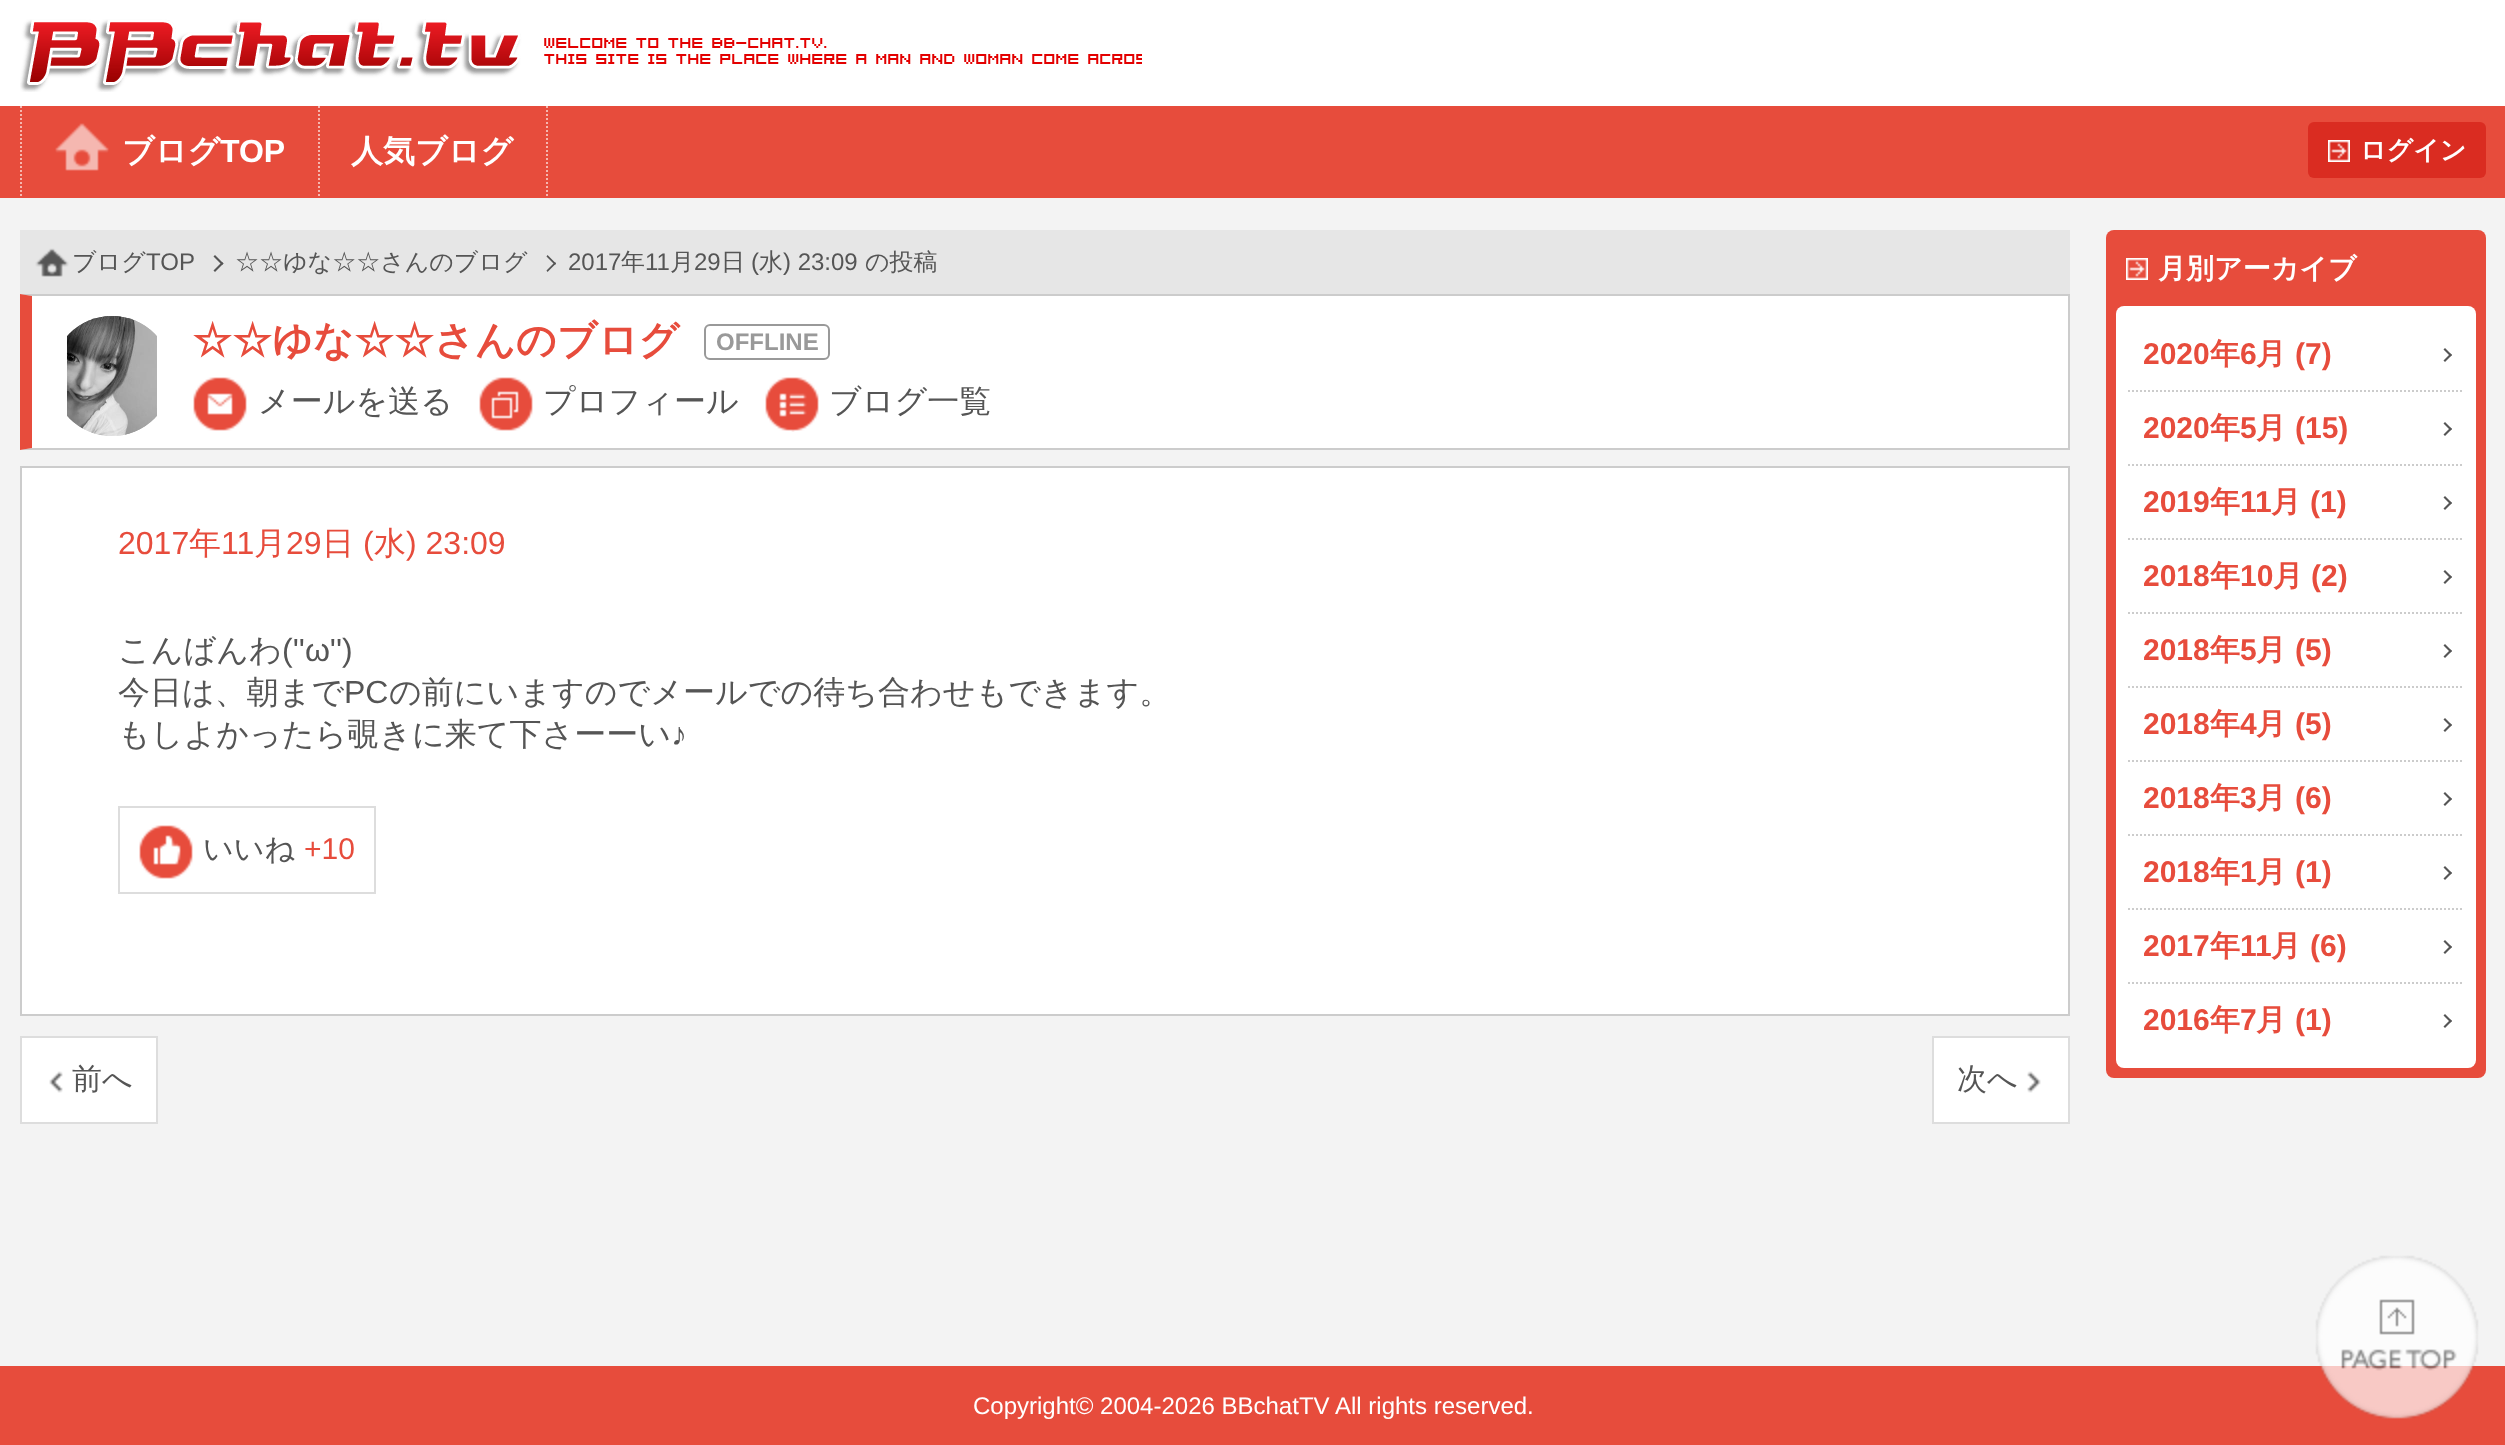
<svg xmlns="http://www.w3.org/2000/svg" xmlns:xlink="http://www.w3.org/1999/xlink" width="2505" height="1445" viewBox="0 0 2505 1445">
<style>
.cls-1{font:bold 32px WenQuanYi Zen Hei;fill:#ffffff}
.cls-2{font:bold 32px Liberation Sans;fill:#ffffff}
.cls-3{font:bold 26px WenQuanYi Zen Hei;fill:#ffffff}
.cls-4{font:500 24px WenQuanYi Zen Hei;fill:#555555}
.cls-5{font:24px Liberation Sans;fill:#555555}
.cls-6{font:bold 40px WenQuanYi Zen Hei;fill:#e74c3c}
.cls-7{font:bold 24px Liberation Sans;fill:#999999}
.cls-8{font:500 32px WenQuanYi Zen Hei;fill:#555555}
.cls-9{font:32px Liberation Sans;fill:#e74c3c}
.cls-10{font:500 32px WenQuanYi Zen Hei;fill:#e74c3c}
.cls-11{font:32px Liberation Sans;fill:#555555}
.cls-12{font:500 30px WenQuanYi Zen Hei;fill:#555555}
.cls-13{font:30px Liberation Sans;fill:#e74c3c}
.cls-14{font:bold 28px WenQuanYi Zen Hei;fill:#ffffff}
.cls-15{font:bold 30px Liberation Sans;fill:#e74c3c}
.cls-16{font:bold 30px WenQuanYi Zen Hei;fill:#e74c3c}
.cls-17{font:24px Liberation Sans;fill:#ffffff}
</style>
<rect width="100%" height="100%" fill="#f3f3f3"/>
<rect fill="#ffffff" x="0" y="0" width="2505" height="106"/>
<image xlink:href="image0.png" x="20" y="19" width="1122" height="73"/>
<rect fill="#e74c3c" x="0" y="106" width="2505" height="92"/>
<path fill="none" stroke="#f5b7b0" stroke-width="2" stroke-dasharray="2 2" d="M319 106V198"/>
<path fill="none" stroke="#f5b7b0" stroke-width="2" stroke-dasharray="2 2" d="M21 106V198"/>
<image xlink:href="image1.png" x="55" y="123" width="54" height="48"/>
<path fill="none" stroke="#f5b7b0" stroke-width="2" stroke-dasharray="2 2" d="M547 106V198"/>
<rect fill="#da2c21" x="2308" y="122" width="178" height="56" rx="6"/>
<image xlink:href="image2.png" x="2328" y="140" width="22" height="22"/>
<rect fill="#e6e6e6" x="20" y="230" width="2050" height="64"/>
<image xlink:href="image3.png" x="35" y="248" width="34" height="29"/>
<path fill="#555555" d="M215 255L223.5 263.5L222 265L213.5 256.5Z"/>
<path fill="#555555" d="M222 262L223.5 263.5L215 272L213.5 270.5Z"/>
<path fill="#555555" d="M547.5 255L556 263.5L555 265L546.5 256.5Z"/>
<path fill="#555555" d="M555 262L556 263.5L547.5 272L546.5 270.5Z"/>
<rect fill="#ffffff" x="32" y="296" width="2036" height="152"/>
<path fill="#cccccc" d="M20 294H2070L2068 296H32Z"/>
<rect fill="#cccccc" x="2068" y="294" width="2" height="156"/>
<path fill="#cccccc" d="M2070 450H20L32 448H2068Z"/>
<path fill="#e74c3c" d="M20 450V294L32 296V448Z"/>
<image xlink:href="image4.png" x="66" y="316" width="91" height="120"/>
<image xlink:href="image5.png" x="67" y="316" width="90" height="120"/>
<rect fill="none" stroke="#999999" stroke-width="2" x="705" y="325" width="124" height="34" rx="5"/>
<image xlink:href="image6.png" x="193" y="377" width="54" height="54"/>
<image xlink:href="image7.png" x="479" y="377" width="54" height="54"/>
<image xlink:href="image8.png" x="765" y="377" width="54" height="55"/>
<rect fill="#ffffff" stroke="#cccccc" stroke-width="2" x="21" y="467" width="2048" height="548"/>
<rect fill="none" stroke="#dddddd" stroke-width="2" x="119" y="807" width="256" height="86"/>
<image xlink:href="image9.png" x="139" y="825" width="54" height="54"/>
<rect fill="#ffffff" stroke="#dddddd" stroke-width="2" x="21" y="1037" width="136" height="86"/>
<image xlink:href="image10.png" x="49" y="1071" width="14" height="22"/>
<rect fill="#ffffff" stroke="#dddddd" stroke-width="2" x="1933" y="1037" width="136" height="86"/>
<image xlink:href="image11.png" x="2027" y="1071" width="14" height="22"/>
<rect fill="#e74c3c" x="2106" y="230" width="380" height="848" rx="8"/>
<image xlink:href="image12.png" x="2126" y="258" width="22" height="22"/>
<rect fill="#ffffff" x="2116" y="306" width="360" height="762" rx="8"/>
<path fill="none" stroke="#cccccc" stroke-width="2" stroke-dasharray="2 2" d="M2128 391H2464"/>
<path fill="#555555" d="M2445 348L2452 355L2450.5 356.5L2443.5 349.5Z"/>
<path fill="#555555" d="M2450.5 353.5L2452 355L2445 362L2443.5 360.5Z"/>
<path fill="none" stroke="#cccccc" stroke-width="2" stroke-dasharray="2 2" d="M2128 465H2464"/>
<path fill="#555555" d="M2445 422L2452 429L2450.5 430.5L2443.5 423.5Z"/>
<path fill="#555555" d="M2450.5 427.5L2452 429L2445 436L2443.5 434.5Z"/>
<path fill="none" stroke="#cccccc" stroke-width="2" stroke-dasharray="2 2" d="M2128 539H2464"/>
<path fill="#555555" d="M2445 496L2452 503L2450.5 504.5L2443.5 497.5Z"/>
<path fill="#555555" d="M2450.5 501.5L2452 503L2445 510L2443.5 508.5Z"/>
<path fill="none" stroke="#cccccc" stroke-width="2" stroke-dasharray="2 2" d="M2128 613H2464"/>
<path fill="#555555" d="M2445 570L2452 577L2450.5 578.5L2443.5 571.5Z"/>
<path fill="#555555" d="M2450.5 575.5L2452 577L2445 584L2443.5 582.5Z"/>
<path fill="none" stroke="#cccccc" stroke-width="2" stroke-dasharray="2 2" d="M2128 687H2464"/>
<path fill="#555555" d="M2445 644L2452 651L2450.5 652.5L2443.5 645.5Z"/>
<path fill="#555555" d="M2450.5 649.5L2452 651L2445 658L2443.5 656.5Z"/>
<path fill="none" stroke="#cccccc" stroke-width="2" stroke-dasharray="2 2" d="M2128 761H2464"/>
<path fill="#555555" d="M2445 718L2452 725L2450.5 726.5L2443.5 719.5Z"/>
<path fill="#555555" d="M2450.5 723.5L2452 725L2445 732L2443.5 730.5Z"/>
<path fill="none" stroke="#cccccc" stroke-width="2" stroke-dasharray="2 2" d="M2128 835H2464"/>
<path fill="#555555" d="M2445 792L2452 799L2450.5 800.5L2443.5 793.5Z"/>
<path fill="#555555" d="M2450.5 797.5L2452 799L2445 806L2443.5 804.5Z"/>
<path fill="none" stroke="#cccccc" stroke-width="2" stroke-dasharray="2 2" d="M2128 909H2464"/>
<path fill="#555555" d="M2445 866L2452 873L2450.5 874.5L2443.5 867.5Z"/>
<path fill="#555555" d="M2450.5 871.5L2452 873L2445 880L2443.5 878.5Z"/>
<path fill="none" stroke="#cccccc" stroke-width="2" stroke-dasharray="2 2" d="M2128 983H2464"/>
<path fill="#555555" d="M2445 940L2452 947L2450.5 948.5L2443.5 941.5Z"/>
<path fill="#555555" d="M2450.5 945.5L2452 947L2445 954L2443.5 952.5Z"/>
<path fill="#555555" d="M2445 1014L2452 1021L2450.5 1022.5L2443.5 1015.5Z"/>
<path fill="#555555" d="M2450.5 1019.5L2452 1021L2445 1028L2443.5 1026.5Z"/>
<rect fill="#e74c3c" x="0" y="1366" width="2505" height="79"/>
<image xlink:href="image13.png" x="2315" y="1255" width="164" height="164"/>
<text class="cls-1" x="122" y="162">ブログ</text>
<text class="cls-2" x="220" y="162">TOP</text>
<text class="cls-1" x="351" y="162">人気ブログ</text>
<text class="cls-3" x="2360" y="159">ログイン</text>
<text class="cls-4" x="72" y="270">ブログ</text>
<text class="cls-5" x="146" y="270">TOP</text>
<text class="cls-4" x="235" y="270">☆☆ゆな☆☆さんのブログ</text>
<text class="cls-5" x="568" y="270">2017</text>
<text class="cls-4" x="621" y="270">年</text>
<text class="cls-5" x="645" y="270">11</text>
<text class="cls-4" x="670" y="270">月</text>
<text class="cls-5" x="694" y="270">29</text>
<text class="cls-4" x="721" y="270">日</text>
<text class="cls-5" x="751" y="270">(</text>
<text class="cls-4" x="759" y="270">水</text>
<text class="cls-5" x="783" y="270">) 23:09</text>
<text class="cls-4" x="865" y="270">の投稿</text>
<text class="cls-6" x="192" y="354">☆☆ゆな☆☆さんのブログ</text>
<text class="cls-7" x="716" y="350">OFFLINE</text>
<text class="cls-8" x="258" y="412">メールを送る</text>
<text class="cls-8" x="543" y="412">プロフィール</text>
<text class="cls-8" x="829" y="412">ブログ一覧</text>
<text class="cls-9" x="118" y="554">2017</text>
<text class="cls-10" x="189" y="554">年</text>
<text class="cls-9" x="221" y="554">11</text>
<text class="cls-10" x="254" y="554">月</text>
<text class="cls-9" x="286" y="554">29</text>
<text class="cls-10" x="322" y="554">日</text>
<text class="cls-9" x="363" y="554">(</text>
<text class="cls-10" x="374" y="554">水</text>
<text class="cls-9" x="406" y="554">) 23:09</text>
<text class="cls-8" x="118" y="661">こんばんわ</text>
<text class="cls-11" x="282" y="661">(''ω'')</text>
<text class="cls-8" x="118" y="703">今日は、朝まで</text>
<text class="cls-11" x="344" y="703">PC</text>
<text class="cls-8" x="389" y="703">の前にいますのでメールでの待ち合わせもできます。</text>
<text class="cls-8" x="118" y="745">もしよかったら覗きに来て下さーーい</text>
<text class="cls-11" x="671" y="745">♪</text>
<text class="cls-12" x="203" y="859">いいね</text>
<text class="cls-13" x="304" y="859">+10</text>
<text class="cls-12" x="72" y="1089">前へ</text>
<text class="cls-12" x="1957" y="1089">次へ</text>
<text class="cls-14" x="2158" y="278">月別アーカイブ</text>
<text class="cls-15" x="2143" y="364">2020</text>
<text class="cls-16" x="2210" y="364">年</text>
<text class="cls-15" x="2240" y="364">6</text>
<text class="cls-16" x="2256" y="364">月</text>
<text class="cls-15" x="2295" y="364">(7)</text>
<text class="cls-15" x="2143" y="438">2020</text>
<text class="cls-16" x="2210" y="438">年</text>
<text class="cls-15" x="2240" y="438">5</text>
<text class="cls-16" x="2256" y="438">月</text>
<text class="cls-15" x="2295" y="438">(15)</text>
<text class="cls-15" x="2143" y="512">2019</text>
<text class="cls-16" x="2210" y="512">年</text>
<text class="cls-15" x="2240" y="512">11</text>
<text class="cls-16" x="2271" y="512">月</text>
<text class="cls-15" x="2310" y="512">(1)</text>
<text class="cls-15" x="2143" y="586">2018</text>
<text class="cls-16" x="2210" y="586">年</text>
<text class="cls-15" x="2240" y="586">10</text>
<text class="cls-16" x="2273" y="586">月</text>
<text class="cls-15" x="2311" y="586">(2)</text>
<text class="cls-15" x="2143" y="660">2018</text>
<text class="cls-16" x="2210" y="660">年</text>
<text class="cls-15" x="2240" y="660">5</text>
<text class="cls-16" x="2256" y="660">月</text>
<text class="cls-15" x="2295" y="660">(5)</text>
<text class="cls-15" x="2143" y="734">2018</text>
<text class="cls-16" x="2210" y="734">年</text>
<text class="cls-15" x="2240" y="734">4</text>
<text class="cls-16" x="2256" y="734">月</text>
<text class="cls-15" x="2295" y="734">(5)</text>
<text class="cls-15" x="2143" y="808">2018</text>
<text class="cls-16" x="2210" y="808">年</text>
<text class="cls-15" x="2240" y="808">3</text>
<text class="cls-16" x="2256" y="808">月</text>
<text class="cls-15" x="2295" y="808">(6)</text>
<text class="cls-15" x="2143" y="882">2018</text>
<text class="cls-16" x="2210" y="882">年</text>
<text class="cls-15" x="2240" y="882">1</text>
<text class="cls-16" x="2256" y="882">月</text>
<text class="cls-15" x="2295" y="882">(1)</text>
<text class="cls-15" x="2143" y="956">2017</text>
<text class="cls-16" x="2210" y="956">年</text>
<text class="cls-15" x="2240" y="956">11</text>
<text class="cls-16" x="2271" y="956">月</text>
<text class="cls-15" x="2310" y="956">(6)</text>
<text class="cls-15" x="2143" y="1030">2016</text>
<text class="cls-16" x="2210" y="1030">年</text>
<text class="cls-15" x="2240" y="1030">7</text>
<text class="cls-16" x="2256" y="1030">月</text>
<text class="cls-15" x="2295" y="1030">(1)</text>
<text class="cls-17" x="973" y="1414">Copyright© 2004-2026 BBchatTV</text>
<text class="cls-17" x="1335" y="1414">All rights reserved.</text>
</svg>
